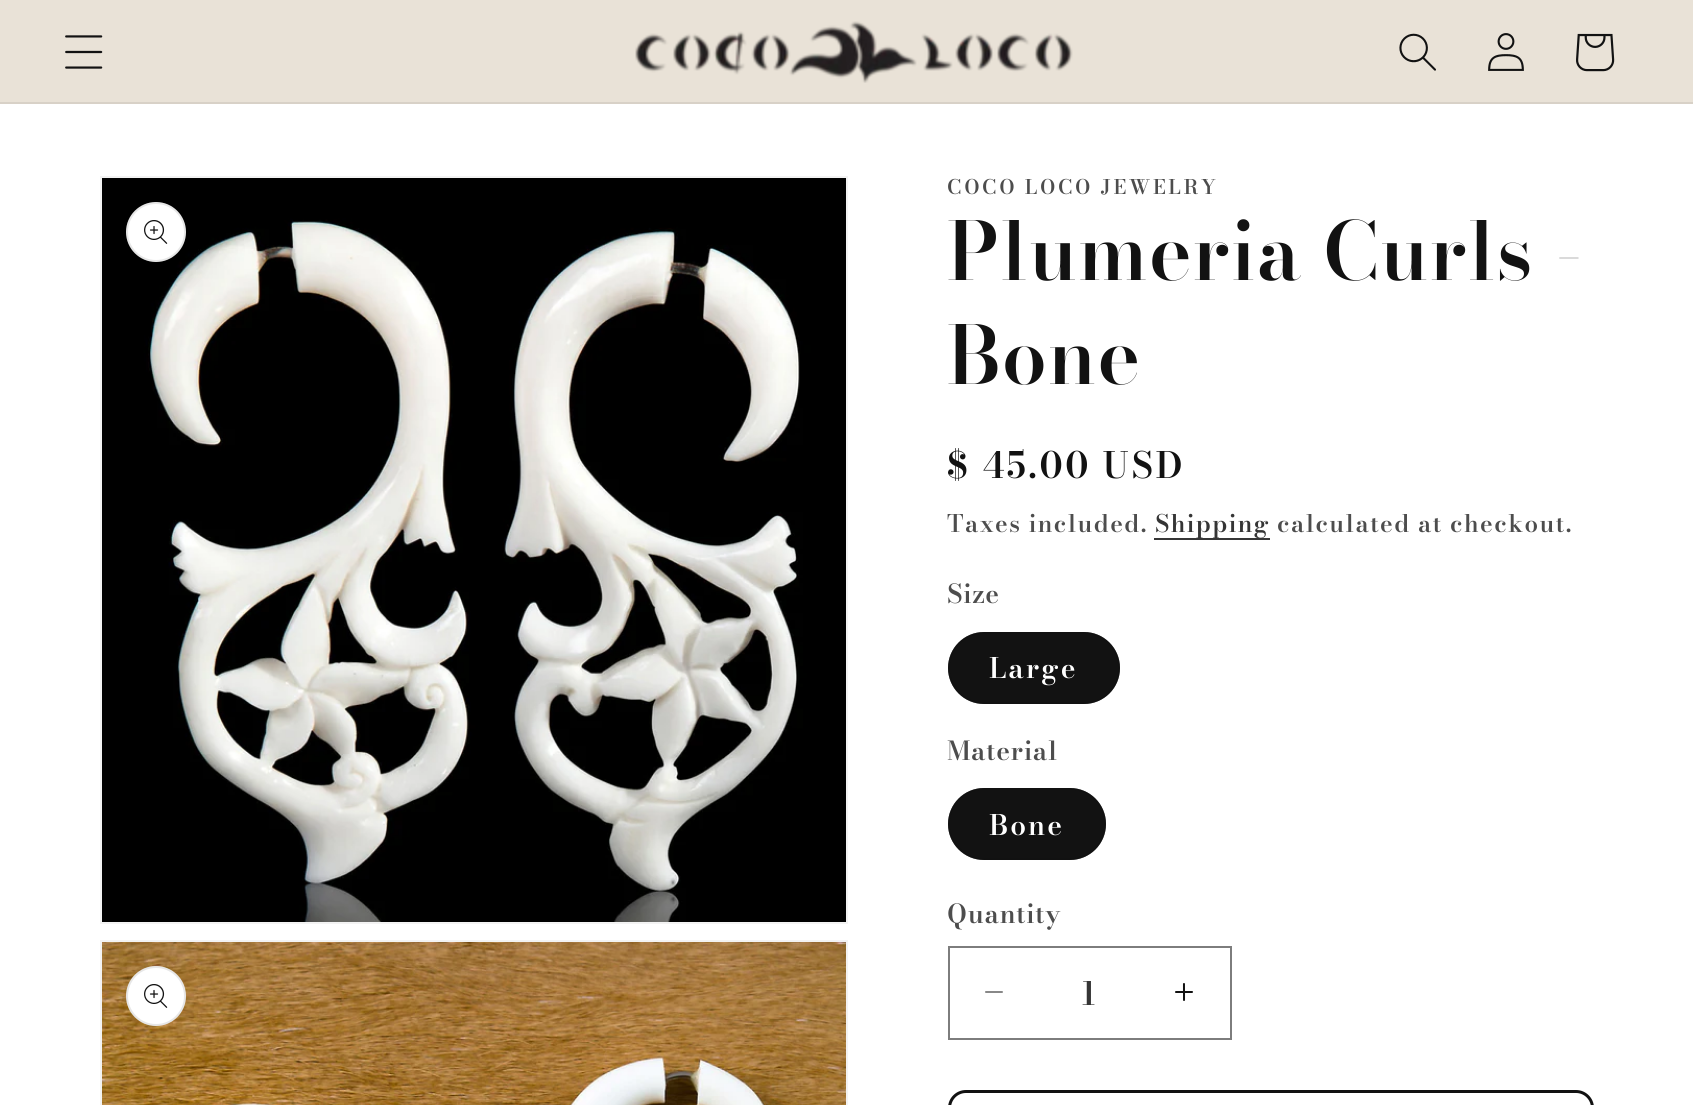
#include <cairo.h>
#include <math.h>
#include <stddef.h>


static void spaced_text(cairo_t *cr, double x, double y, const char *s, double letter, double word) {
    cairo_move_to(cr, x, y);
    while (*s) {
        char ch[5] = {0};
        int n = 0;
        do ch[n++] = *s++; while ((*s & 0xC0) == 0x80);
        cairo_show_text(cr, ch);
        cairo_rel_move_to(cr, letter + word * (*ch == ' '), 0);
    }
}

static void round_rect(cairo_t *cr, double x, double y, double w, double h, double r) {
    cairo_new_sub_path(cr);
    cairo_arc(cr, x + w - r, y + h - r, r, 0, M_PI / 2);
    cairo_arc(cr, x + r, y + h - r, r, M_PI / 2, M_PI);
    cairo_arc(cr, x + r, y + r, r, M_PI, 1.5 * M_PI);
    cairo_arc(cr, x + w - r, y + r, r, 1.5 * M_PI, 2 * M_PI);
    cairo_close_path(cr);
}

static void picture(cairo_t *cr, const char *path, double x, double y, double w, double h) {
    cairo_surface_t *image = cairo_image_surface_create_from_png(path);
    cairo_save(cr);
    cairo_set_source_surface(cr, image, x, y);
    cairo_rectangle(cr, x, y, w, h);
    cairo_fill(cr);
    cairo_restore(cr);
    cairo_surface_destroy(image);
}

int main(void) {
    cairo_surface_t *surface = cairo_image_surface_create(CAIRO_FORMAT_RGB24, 1693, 1105);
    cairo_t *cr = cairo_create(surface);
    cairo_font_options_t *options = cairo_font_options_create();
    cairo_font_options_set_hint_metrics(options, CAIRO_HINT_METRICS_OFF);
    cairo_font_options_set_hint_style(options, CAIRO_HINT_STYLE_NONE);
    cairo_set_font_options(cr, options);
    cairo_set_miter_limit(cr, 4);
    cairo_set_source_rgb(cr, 1, 1, 1);
    cairo_paint(cr);
    cairo_set_source_rgb(cr, 0.914, 0.886, 0.843);
    cairo_rectangle(cr, 0, 0, 1693, 102);
    cairo_fill(cr);
    cairo_set_source_rgb(cr, 0.847, 0.82, 0.78);
    cairo_rectangle(cr, 0, 102, 1693, 2);
    cairo_fill(cr);
    picture(cr, "img1.png", 65, 35, 38, 34);
    picture(cr, "img2.png", 635, 21, 438, 62);
    picture(cr, "img3.png", 1399, 33, 37, 38);
    picture(cr, "img4.png", 1488, 33, 36, 38);
    picture(cr, "img5.png", 1576, 33, 39, 39);
    cairo_rectangle(cr, 101, 177, 746, 746);
    cairo_set_source_rgb(cr, 0.953, 0.953, 0.953);
    cairo_stroke(cr);
    picture(cr, "img6.png", 102, 178, 744, 744);
    cairo_set_source_rgb(cr, 1, 1, 1);
    cairo_arc(cr, 156, 232, 30, 0, 2 * M_PI);
    cairo_fill(cr);
    cairo_arc(cr, 156, 232, 29, 0, 2 * M_PI);
    cairo_set_source_rgba(cr, 0.071, 0.071, 0.071, 0.1);
    cairo_stroke(cr);
    picture(cr, "img7.png", 144, 220, 24, 24);
    cairo_rectangle(cr, 101, 941, 746, 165);
    cairo_set_source_rgb(cr, 0.953, 0.953, 0.953);
    cairo_stroke(cr);
    picture(cr, "img8.png", 102, 942, 744, 163);
    cairo_set_source_rgb(cr, 1, 1, 1);
    cairo_arc(cr, 156, 996, 30, 0, 2 * M_PI);
    cairo_fill(cr);
    cairo_arc(cr, 156, 996, 29, 0, 2 * M_PI);
    cairo_set_source_rgba(cr, 0.071, 0.071, 0.071, 0.1);
    cairo_stroke(cr);
    picture(cr, "img7.png", 144, 984, 24, 24);
    cairo_select_font_face(cr, "Bodoni Moda SemiBold", CAIRO_FONT_SLANT_NORMAL, CAIRO_FONT_WEIGHT_NORMAL);
    cairo_set_font_size(cr, 20);
    cairo_set_source_rgb(cr, 0.302, 0.302, 0.302);
    spaced_text(cr, 947, 194, "COCO LOCO JEWELRY", 2.6, 0);
    cairo_select_font_face(cr, "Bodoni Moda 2 SemiBold", CAIRO_FONT_SLANT_NORMAL, CAIRO_FONT_WEIGHT_NORMAL);
    cairo_set_font_size(cr, 80);
    cairo_set_source_rgb(cr, 0.071, 0.071, 0.071);
    spaced_text(cr, 947, 280, "Plumeria Curls -", 1.25, 0);
    spaced_text(cr, 947, 384, "Bone", 1.25, 0);
    cairo_select_font_face(cr, "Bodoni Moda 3 SemiBold", CAIRO_FONT_SLANT_NORMAL, CAIRO_FONT_WEIGHT_NORMAL);
    cairo_set_font_size(cr, 36);
    spaced_text(cr, 947, 478, "$ 45.00 USD", 2.6, 0);
    cairo_set_font_size(cr, 24);
    cairo_set_source_rgb(cr, 0.302, 0.302, 0.302);
    spaced_text(cr, 947, 532, "Taxes included.", 1.4, 0);
    cairo_set_source_rgb(cr, 0.212, 0.212, 0.212);
    cairo_rectangle(cr, 1154, 538, 116, 2);
    cairo_fill(cr);
    cairo_set_source_rgb(cr, 0.208, 0.208, 0.208);
    spaced_text(cr, 1155, 532, "Shipping", 1.4, 0);
    cairo_set_source_rgb(cr, 0.302, 0.302, 0.302);
    spaced_text(cr, 1277, 532, "calculated at checkout.", 1.4, 0);
    cairo_set_font_size(cr, 26);
    spaced_text(cr, 947, 603, "Size", 0.75, 0);
    cairo_set_source_rgb(cr, 0.071, 0.071, 0.071);
    round_rect(cr, 948, 632, 172, 72, 36);
    cairo_fill(cr);
    round_rect(cr, 949, 633, 170, 70, 35);
    cairo_set_source_rgba(cr, 0.071, 0.071, 0.071, 0.55);
    cairo_stroke(cr);
    cairo_set_font_size(cr, 28);
    cairo_set_source_rgb(cr, 1, 1, 1);
    spaced_text(cr, 989, 678, "Large", 2, 0);
    cairo_set_font_size(cr, 26);
    cairo_set_source_rgb(cr, 0.302, 0.302, 0.302);
    spaced_text(cr, 947, 760, "Material", 0.75, 0);
    cairo_set_source_rgb(cr, 0.071, 0.071, 0.071);
    round_rect(cr, 948, 788, 158, 72, 36);
    cairo_fill(cr);
    round_rect(cr, 949, 789, 156, 70, 35);
    cairo_set_source_rgba(cr, 0.071, 0.071, 0.071, 0.55);
    cairo_stroke(cr);
    cairo_set_font_size(cr, 28);
    cairo_set_source_rgb(cr, 1, 1, 1);
    spaced_text(cr, 989, 835, "Bone", 2, 0);
    cairo_set_font_size(cr, 26);
    cairo_set_source_rgb(cr, 0.302, 0.302, 0.302);
    spaced_text(cr, 947, 923, "Quantity", 0.75, 0);
    picture(cr, "img9.png", 985, 991, 18, 2);
    picture(cr, "img10.png", 1175, 983, 18, 18);
    cairo_rectangle(cr, 949, 947, 282, 92);
    cairo_set_source_rgb(cr, 0.49, 0.49, 0.49);
    cairo_stroke(cr);
    cairo_set_font_size(cr, 32);
    cairo_set_source_rgb(cr, 0.208, 0.208, 0.208);
    cairo_move_to(cr, 1081, 1005);
    cairo_show_text(cr, "1");
    round_rect(cr, 949.5, 1091.5, 643, 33, 16.5);
    cairo_set_source_rgb(cr, 0.071, 0.071, 0.071);
    cairo_set_line_width(cr, 3);
    cairo_stroke(cr);
    cairo_surface_write_to_png(surface, "page.png");
    cairo_font_options_destroy(options);
    cairo_destroy(cr);
    cairo_surface_destroy(surface);
    return 0;
}
